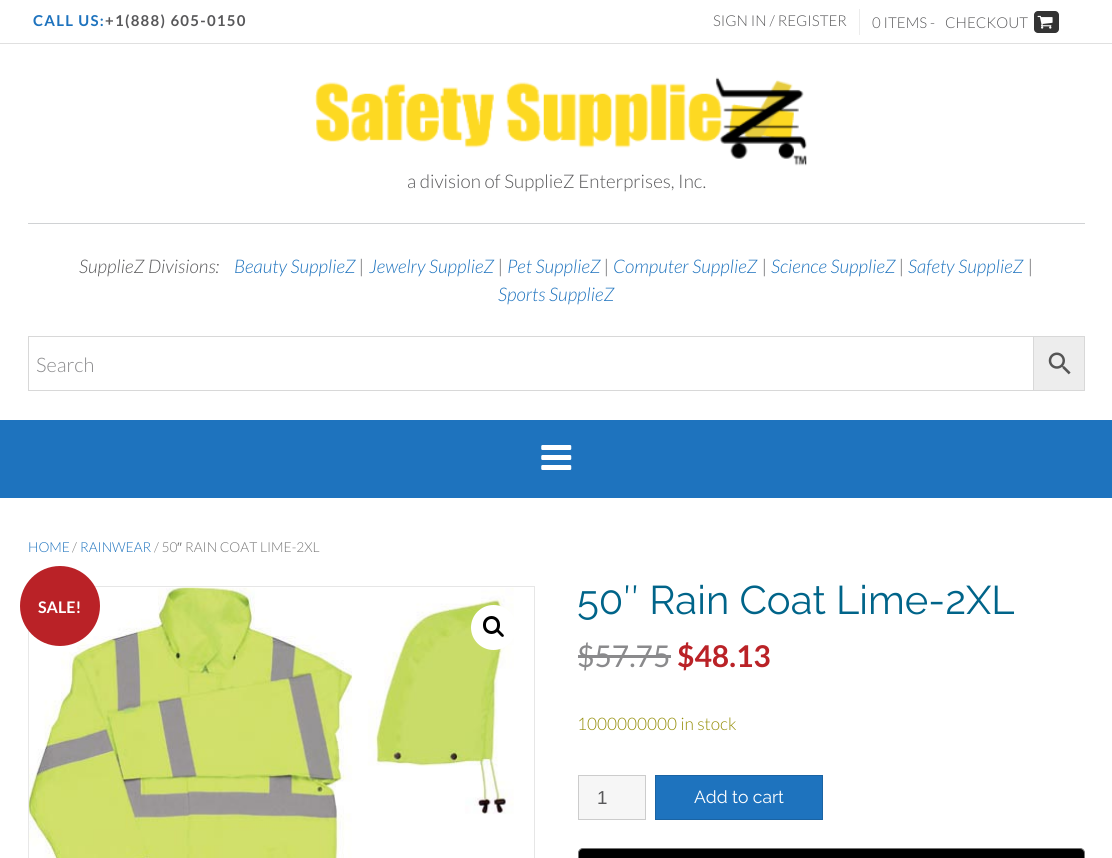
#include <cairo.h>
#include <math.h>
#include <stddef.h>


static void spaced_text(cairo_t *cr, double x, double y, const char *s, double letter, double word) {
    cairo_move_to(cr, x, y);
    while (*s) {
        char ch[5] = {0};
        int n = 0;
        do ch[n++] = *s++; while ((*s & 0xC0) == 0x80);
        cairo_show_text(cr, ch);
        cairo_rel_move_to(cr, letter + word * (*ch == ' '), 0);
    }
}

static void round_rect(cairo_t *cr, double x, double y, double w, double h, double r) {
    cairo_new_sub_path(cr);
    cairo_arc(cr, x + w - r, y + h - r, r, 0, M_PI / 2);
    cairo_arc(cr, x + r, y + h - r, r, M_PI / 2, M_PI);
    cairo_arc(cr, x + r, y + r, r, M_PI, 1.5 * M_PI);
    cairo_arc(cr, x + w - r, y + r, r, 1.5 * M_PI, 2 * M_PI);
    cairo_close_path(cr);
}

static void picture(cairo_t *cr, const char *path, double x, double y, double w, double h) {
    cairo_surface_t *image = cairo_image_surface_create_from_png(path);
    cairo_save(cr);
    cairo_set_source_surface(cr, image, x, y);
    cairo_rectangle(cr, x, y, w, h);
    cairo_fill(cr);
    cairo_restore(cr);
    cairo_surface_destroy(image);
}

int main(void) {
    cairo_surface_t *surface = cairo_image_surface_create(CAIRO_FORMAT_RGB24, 1112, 858);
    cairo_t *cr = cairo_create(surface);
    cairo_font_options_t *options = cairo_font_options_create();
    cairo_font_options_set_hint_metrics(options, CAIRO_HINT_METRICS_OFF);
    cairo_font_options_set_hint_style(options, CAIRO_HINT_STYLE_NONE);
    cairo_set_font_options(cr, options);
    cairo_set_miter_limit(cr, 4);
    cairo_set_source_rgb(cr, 1, 1, 1);
    cairo_paint(cr);
    cairo_set_source_rgb(cr, 0.878, 0.878, 0.878);
    cairo_rectangle(cr, 0, 43, 1112, 1);
    cairo_fill(cr);
    cairo_select_font_face(cr, "Lato", CAIRO_FONT_SLANT_NORMAL, CAIRO_FONT_WEIGHT_BOLD);
    cairo_set_font_size(cr, 15);
    cairo_set_source_rgb(cr, 0.118, 0.451, 0.745);
    spaced_text(cr, 33, 26, "CALL US:", 1.25, 0);
    cairo_set_source_rgb(cr, 0.345, 0.345, 0.353);
    spaced_text(cr, 105, 26, "+1(888) 605-0150", 1.25, 0);
    cairo_set_source_rgb(cr, 0.922, 0.922, 0.922);
    cairo_rectangle(cr, 859, 9, 1, 26);
    cairo_fill(cr);
    cairo_select_font_face(cr, "Lato Light", CAIRO_FONT_SLANT_NORMAL, CAIRO_FONT_WEIGHT_NORMAL);
    cairo_set_source_rgb(cr, 0.345, 0.345, 0.353);
    cairo_move_to(cr, 713, 26);
    cairo_show_text(cr, "SIGN IN / REGISTER");
    cairo_move_to(cr, 872, 28);
    cairo_show_text(cr, "0 ITEMS -");
    cairo_move_to(cr, 945, 28);
    cairo_show_text(cr, "CHECKOUT");
    cairo_set_source_rgb(cr, 0.2, 0.2, 0.2);
    round_rect(cr, 1034, 11, 25, 22, 4);
    cairo_fill(cr);
    picture(cr, "img1.png", 1037, 15, 16, 14);
    picture(cr, "img2.png", 315, 77, 492, 89);
    cairo_set_font_size(cr, 18.75);
    cairo_set_source_rgb(cr, 0.345, 0.345, 0.353);
    cairo_move_to(cr, 407, 188);
    cairo_show_text(cr, "a division of SupplieZ Enterprises, Inc.");
    cairo_set_source_rgb(cr, 0.816, 0.824, 0.831);
    cairo_rectangle(cr, 28, 223, 1057, 1);
    cairo_fill(cr);
    cairo_select_font_face(cr, "Lato Light", CAIRO_FONT_SLANT_ITALIC, CAIRO_FONT_WEIGHT_NORMAL);
    cairo_set_source_rgb(cr, 0.345, 0.345, 0.353);
    cairo_move_to(cr, 79, 273);
    cairo_show_text(cr, "SupplieZ Divisions:");
    cairo_set_source_rgb(cr, 0.118, 0.451, 0.745);
    cairo_move_to(cr, 234, 273);
    cairo_show_text(cr, "Beauty SupplieZ");
    cairo_set_source_rgb(cr, 0.345, 0.345, 0.353);
    cairo_move_to(cr, 359, 273);
    cairo_show_text(cr, "|");
    cairo_set_source_rgb(cr, 0.118, 0.451, 0.745);
    cairo_move_to(cr, 369, 273);
    cairo_show_text(cr, "Jewelry SupplieZ");
    cairo_set_source_rgb(cr, 0.345, 0.345, 0.353);
    cairo_move_to(cr, 498, 273);
    cairo_show_text(cr, "|");
    cairo_set_source_rgb(cr, 0.118, 0.451, 0.745);
    cairo_move_to(cr, 507, 273);
    cairo_show_text(cr, "Pet SupplieZ");
    cairo_set_source_rgb(cr, 0.345, 0.345, 0.353);
    cairo_move_to(cr, 604, 273);
    cairo_show_text(cr, "|");
    cairo_set_source_rgb(cr, 0.118, 0.451, 0.745);
    cairo_move_to(cr, 613, 273);
    cairo_show_text(cr, "Computer SupplieZ");
    cairo_set_source_rgb(cr, 0.345, 0.345, 0.353);
    cairo_move_to(cr, 762, 273);
    cairo_show_text(cr, "|");
    cairo_set_source_rgb(cr, 0.118, 0.451, 0.745);
    cairo_move_to(cr, 771, 273);
    cairo_show_text(cr, "Science SupplieZ");
    cairo_set_source_rgb(cr, 0.345, 0.345, 0.353);
    cairo_move_to(cr, 899, 273);
    cairo_show_text(cr, "|");
    cairo_set_source_rgb(cr, 0.118, 0.451, 0.745);
    cairo_move_to(cr, 908, 273);
    cairo_show_text(cr, "Safety SupplieZ");
    cairo_set_source_rgb(cr, 0.345, 0.345, 0.353);
    cairo_move_to(cr, 1028, 273);
    cairo_show_text(cr, "|");
    cairo_set_source_rgb(cr, 0.118, 0.451, 0.745);
    cairo_move_to(cr, 498, 301);
    cairo_show_text(cr, "Sports SupplieZ");
    cairo_set_source_rgb(cr, 0.929, 0.929, 0.929);
    cairo_rectangle(cr, 1033.5, 336.5, 51, 54);
    cairo_fill_preserve(cr);
    cairo_set_source_rgb(cr, 0.847, 0.847, 0.847);
    cairo_set_line_width(cr, 1);
    cairo_stroke(cr);
    cairo_rectangle(cr, 28.5, 336.5, 1005, 54);
    cairo_stroke(cr);
    cairo_select_font_face(cr, "Lato Light", CAIRO_FONT_SLANT_NORMAL, CAIRO_FONT_WEIGHT_NORMAL);
    cairo_set_font_size(cr, 20);
    cairo_set_source_rgb(cr, 0.541, 0.541, 0.549);
    cairo_move_to(cr, 36, 372);
    cairo_show_text(cr, "Search");
    picture(cr, "img3.png", 1048, 352, 23, 23);
    cairo_set_source_rgb(cr, 0.118, 0.451, 0.745);
    cairo_rectangle(cr, 0, 420, 1112, 78);
    cairo_fill(cr);
    picture(cr, "img4.png", 541, 445, 31, 25);
    cairo_set_font_size(cr, 13.75);
    cairo_move_to(cr, 28, 552);
    cairo_show_text(cr, "HOME");
    cairo_set_source_rgb(cr, 0.467, 0.467, 0.467);
    cairo_move_to(cr, 72, 552);
    cairo_show_text(cr, "/");
    cairo_set_source_rgb(cr, 0.118, 0.451, 0.745);
    cairo_move_to(cr, 80, 552);
    cairo_show_text(cr, "RAINWEAR");
    cairo_set_source_rgb(cr, 0.467, 0.467, 0.467);
    cairo_move_to(cr, 154, 552);
    cairo_show_text(cr, "/ 50");
    cairo_select_font_face(cr, "Liberation Sans", CAIRO_FONT_SLANT_NORMAL, CAIRO_FONT_WEIGHT_NORMAL);
    cairo_move_to(cr, 177, 552);
    cairo_show_text(cr, "″");
    cairo_select_font_face(cr, "Lato Light", CAIRO_FONT_SLANT_NORMAL, CAIRO_FONT_WEIGHT_NORMAL);
    cairo_move_to(cr, 185, 552);
    cairo_show_text(cr, "RAIN COAT LIME-2XL");
    cairo_rectangle(cr, 28.5, 586.5, 506, 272);
    cairo_set_source_rgb(cr, 0.902, 0.902, 0.902);
    cairo_stroke(cr);
    picture(cr, "img5.png", 28, 587, 486, 271);
    cairo_set_source_rgb(cr, 1, 1, 1);
    cairo_arc(cr, 493.5, 627.5, 22.5, 0, 2 * M_PI);
    cairo_fill(cr);
    round_rect(cr, 484.5, 617.5, 14, 15, 7);
    cairo_set_source_rgb(cr, 0, 0, 0);
    cairo_set_line_width(cr, 3);
    cairo_stroke(cr);
    cairo_new_path(cr);
    cairo_move_to(cr, 496.5, 629.5);
    cairo_curve_to(cr, 498, 628, 500, 631.5, 501, 632);
    cairo_curve_to(cr, 501.5, 633, 505, 635, 503.5, 636.5);
    cairo_curve_to(cr, 502, 638, 500, 635, 499, 634);
    cairo_curve_to(cr, 498.5, 633, 495, 631, 496.5, 629.5);
    cairo_close_path(cr);
    cairo_fill(cr);
    cairo_select_font_face(cr, "Raleway", CAIRO_FONT_SLANT_NORMAL, CAIRO_FONT_WEIGHT_NORMAL);
    cairo_set_font_size(cr, 40);
    cairo_set_source_rgb(cr, 0, 0.392, 0.537);
    cairo_move_to(cr, 577, 614);
    cairo_show_text(cr, "50″ Rain Coat Lime-2XL");
    cairo_select_font_face(cr, "Lato", CAIRO_FONT_SLANT_NORMAL, CAIRO_FONT_WEIGHT_NORMAL);
    cairo_set_font_size(cr, 30);
    cairo_set_source_rgb(cr, 0.541, 0.541, 0.549);
    cairo_move_to(cr, 577, 667);
    cairo_show_text(cr, "$57.75");
    cairo_rectangle(cr, 578, 655, 93, 3);
    cairo_fill(cr);
    cairo_select_font_face(cr, "Lato", CAIRO_FONT_SLANT_NORMAL, CAIRO_FONT_WEIGHT_BOLD);
    cairo_set_source_rgb(cr, 0.729, 0.133, 0.153);
    cairo_move_to(cr, 677, 667);
    cairo_show_text(cr, "$48.13");
    cairo_select_font_face(cr, "Lato Light", CAIRO_FONT_SLANT_NORMAL, CAIRO_FONT_WEIGHT_NORMAL);
    cairo_set_font_size(cr, 17.25);
    cairo_set_source_rgb(cr, 0.584, 0.557, 0.035);
    cairo_move_to(cr, 577, 730);
    cairo_show_text(cr, "1000000000 in stock");
    cairo_set_source_rgb(cr, 0.961, 0.961, 0.961);
    cairo_rectangle(cr, 578.5, 775.5, 67, 44);
    cairo_fill_preserve(cr);
    cairo_set_source_rgb(cr, 0.8, 0.8, 0.8);
    cairo_set_line_width(cr, 1);
    cairo_stroke(cr);
    cairo_select_font_face(cr, "Liberation Sans", CAIRO_FONT_SLANT_NORMAL, CAIRO_FONT_WEIGHT_NORMAL);
    cairo_set_font_size(cr, 18.75);
    cairo_set_source_rgb(cr, 0.345, 0.345, 0.353);
    cairo_move_to(cr, 597, 804);
    cairo_show_text(cr, "1");
    cairo_set_source_rgb(cr, 0.118, 0.451, 0.745);
    cairo_rectangle(cr, 655.5, 775.5, 167, 44);
    cairo_fill_preserve(cr);
    cairo_set_source_rgb(cr, 0.102, 0.388, 0.639);
    cairo_stroke(cr);
    cairo_select_font_face(cr, "Raleway", CAIRO_FONT_SLANT_NORMAL, CAIRO_FONT_WEIGHT_NORMAL);
    cairo_set_font_size(cr, 17.5);
    cairo_set_source_rgb(cr, 1, 1, 1);
    cairo_move_to(cr, 694, 803);
    cairo_show_text(cr, "Add to cart");
    cairo_set_source_rgb(cr, 0, 0, 0);
    round_rect(cr, 578.5, 848.5, 506, 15, 4.5);
    cairo_fill_preserve(cr);
    cairo_set_source_rgb(cr, 0.459, 0.459, 0.459);
    cairo_stroke(cr);
    cairo_set_source_rgb(cr, 0.729, 0.133, 0.153);
    cairo_arc(cr, 60, 606, 40, 0, 2 * M_PI);
    cairo_fill(cr);
    cairo_select_font_face(cr, "Lato", CAIRO_FONT_SLANT_NORMAL, CAIRO_FONT_WEIGHT_BOLD);
    cairo_set_font_size(cr, 16);
    cairo_set_source_rgb(cr, 1, 1, 1);
    cairo_move_to(cr, 38, 613);
    cairo_show_text(cr, "SALE!");
    cairo_surface_write_to_png(surface, "page.png");
    cairo_font_options_destroy(options);
    cairo_destroy(cr);
    cairo_surface_destroy(surface);
    return 0;
}
